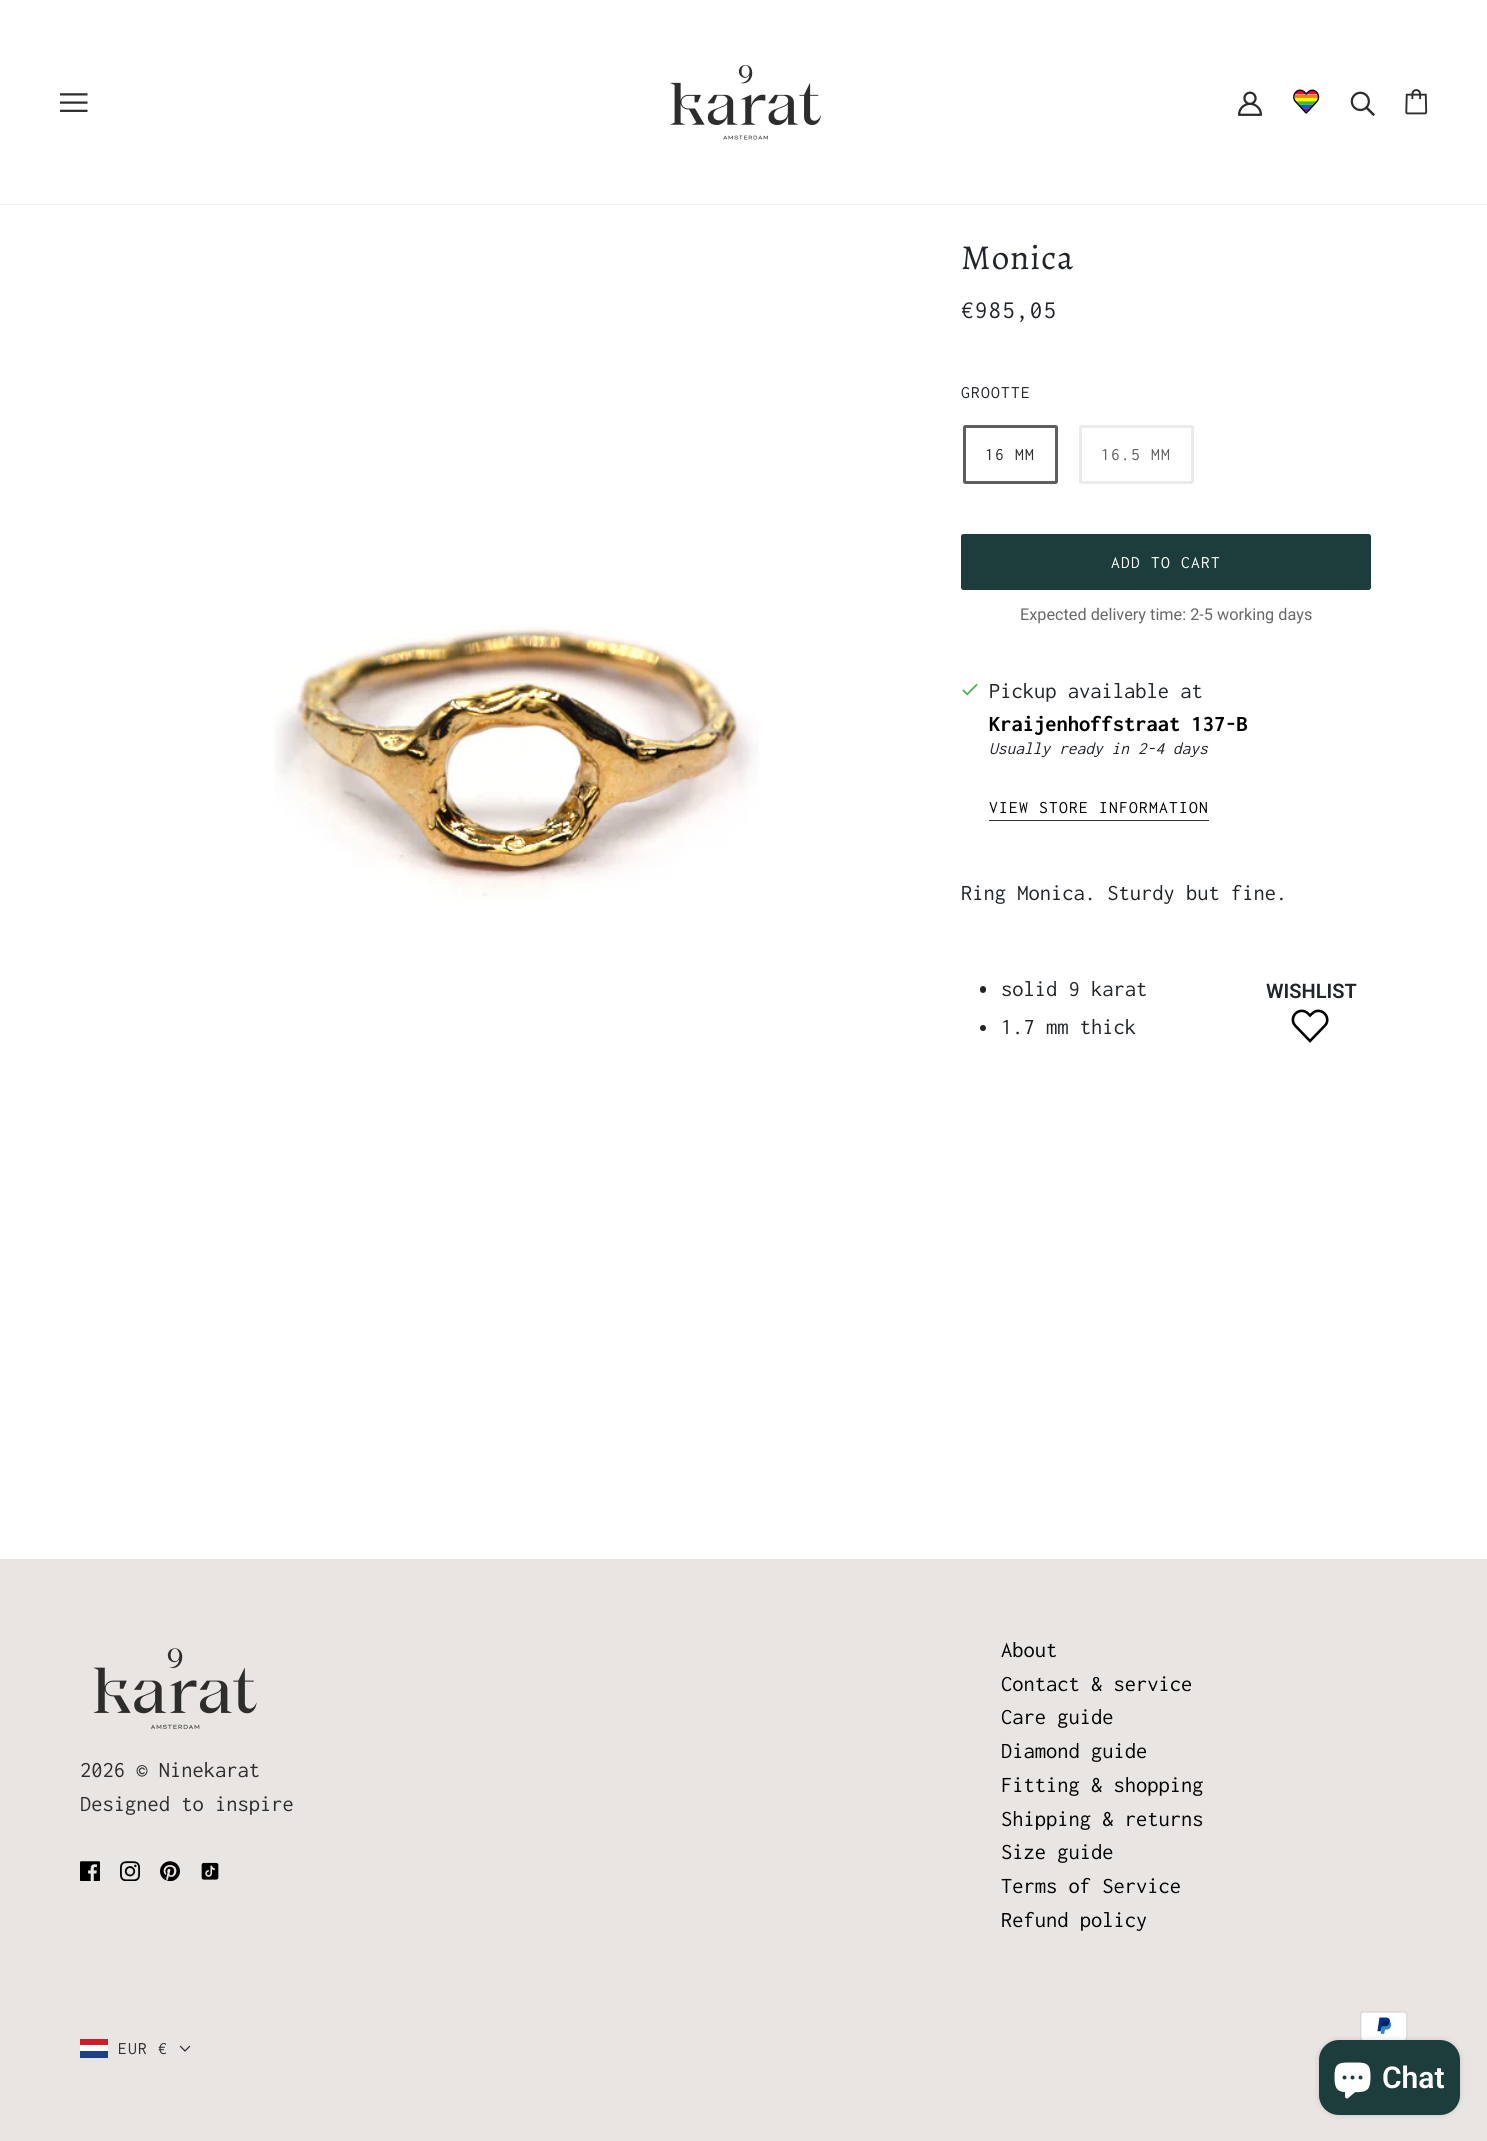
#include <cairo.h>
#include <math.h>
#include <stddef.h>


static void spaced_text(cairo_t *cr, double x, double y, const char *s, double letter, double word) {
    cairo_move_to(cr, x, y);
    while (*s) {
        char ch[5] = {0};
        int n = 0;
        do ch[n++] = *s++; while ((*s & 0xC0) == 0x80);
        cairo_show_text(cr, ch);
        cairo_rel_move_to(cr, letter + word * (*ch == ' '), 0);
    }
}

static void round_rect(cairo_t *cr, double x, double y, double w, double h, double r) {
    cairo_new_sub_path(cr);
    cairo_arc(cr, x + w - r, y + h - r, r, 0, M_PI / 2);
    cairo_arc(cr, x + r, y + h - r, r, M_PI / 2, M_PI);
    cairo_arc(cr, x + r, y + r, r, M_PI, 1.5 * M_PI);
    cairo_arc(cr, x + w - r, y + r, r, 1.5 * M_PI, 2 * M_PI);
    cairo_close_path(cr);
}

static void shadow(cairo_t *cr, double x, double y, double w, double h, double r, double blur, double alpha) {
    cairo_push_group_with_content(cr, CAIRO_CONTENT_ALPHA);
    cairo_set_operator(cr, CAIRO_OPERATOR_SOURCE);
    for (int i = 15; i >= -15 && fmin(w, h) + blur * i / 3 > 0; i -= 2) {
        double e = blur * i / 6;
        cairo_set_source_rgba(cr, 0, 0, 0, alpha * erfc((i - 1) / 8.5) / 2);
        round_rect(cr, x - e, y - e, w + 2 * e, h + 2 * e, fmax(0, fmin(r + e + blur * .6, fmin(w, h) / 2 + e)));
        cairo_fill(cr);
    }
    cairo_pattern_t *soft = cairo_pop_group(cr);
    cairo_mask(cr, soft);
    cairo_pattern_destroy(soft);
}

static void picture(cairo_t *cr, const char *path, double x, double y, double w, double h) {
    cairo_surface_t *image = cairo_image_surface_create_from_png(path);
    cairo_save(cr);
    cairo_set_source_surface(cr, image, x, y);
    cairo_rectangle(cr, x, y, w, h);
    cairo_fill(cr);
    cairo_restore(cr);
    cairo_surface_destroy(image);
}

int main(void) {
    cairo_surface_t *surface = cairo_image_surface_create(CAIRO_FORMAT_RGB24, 1487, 2141);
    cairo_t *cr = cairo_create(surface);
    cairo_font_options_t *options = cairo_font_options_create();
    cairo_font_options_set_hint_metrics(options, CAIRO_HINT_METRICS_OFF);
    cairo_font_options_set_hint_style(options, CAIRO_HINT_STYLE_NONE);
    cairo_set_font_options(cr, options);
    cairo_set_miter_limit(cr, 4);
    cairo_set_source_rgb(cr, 1, 1, 1);
    cairo_paint(cr);
    cairo_set_source_rgb(cr, 0.941, 0.941, 0.941);
    cairo_rectangle(cr, 0, 204, 1487, 1);
    cairo_fill(cr);
    picture(cr, "img1.png", 60, 93, 28, 19);
    picture(cr, "img2.png", 670, 65, 151, 75);
    picture(cr, "img3.png", 1238, 91, 25, 25);
    picture(cr, "img4.png", 1293, 89, 27, 25);
    picture(cr, "img5.png", 1350, 91, 25, 25);
    picture(cr, "img6.png", 1405, 89, 23, 26);
    picture(cr, "img7.png", 274, 625, 485, 276);
    cairo_select_font_face(cr, "Alegreya", CAIRO_FONT_SLANT_NORMAL, CAIRO_FONT_WEIGHT_NORMAL);
    cairo_set_font_size(cr, 35);
    cairo_set_source_rgb(cr, 0.129, 0.145, 0.161);
    spaced_text(cr, 961, 269, "Monica", 1, 0);
    cairo_select_font_face(cr, "Inconsolata", CAIRO_FONT_SLANT_NORMAL, CAIRO_FONT_WEIGHT_NORMAL);
    cairo_set_font_size(cr, 25);
    spaced_text(cr, 961, 318, "€985,05", 1.25, 0);
    cairo_set_font_size(cr, 17.5);
    spaced_text(cr, 961, 398, "GROOTTE", 1.25, 0);
    round_rect(cr, 964.5, 426.5, 92, 56, 1);
    cairo_set_source_rgb(cr, 0.373, 0.365, 0.373);
    cairo_set_line_width(cr, 3);
    cairo_stroke(cr);
    cairo_set_source_rgb(cr, 0.18, 0.176, 0.18);
    spaced_text(cr, 985, 460, "16 MM", 1.25, 0);
    round_rect(cr, 1080.5, 426.5, 112, 56, 1);
    cairo_set_source_rgb(cr, 0.918, 0.918, 0.918);
    cairo_stroke(cr);
    cairo_set_source_rgb(cr, 0.373, 0.365, 0.373);
    spaced_text(cr, 1101, 460, "16.5 MM", 1.25, 0);
    cairo_set_source_rgb(cr, 0.11, 0.239, 0.235);
    round_rect(cr, 961, 534, 410, 56, 2.5);
    cairo_fill(cr);
    cairo_set_source_rgb(cr, 1, 1, 1);
    spaced_text(cr, 1111, 568, "ADD TO CART", 1.25, 0);
    cairo_select_font_face(cr, "Roboto", CAIRO_FONT_SLANT_NORMAL, CAIRO_FONT_WEIGHT_NORMAL);
    cairo_set_font_size(cr, 16.25);
    cairo_set_source_rgb(cr, 0.408, 0.408, 0.408);
    cairo_move_to(cr, 1020, 620);
    cairo_show_text(cr, "Expected delivery time: 2-5 working days");
    picture(cr, "img8.png", 962, 683, 16, 13);
    cairo_select_font_face(cr, "Inconsolata", CAIRO_FONT_SLANT_NORMAL, CAIRO_FONT_WEIGHT_NORMAL);
    cairo_set_font_size(cr, 22.5);
    cairo_set_source_rgb(cr, 0.129, 0.145, 0.161);
    cairo_move_to(cr, 989, 698);
    cairo_show_text(cr, "Pickup available at");
    cairo_select_font_face(cr, "Inconsolata", CAIRO_FONT_SLANT_NORMAL, CAIRO_FONT_WEIGHT_BOLD);
    cairo_set_source_rgb(cr, 0, 0, 0);
    cairo_move_to(cr, 989, 731);
    cairo_show_text(cr, "Kraijenhoffstraat 137-B");
    cairo_select_font_face(cr, "Inconsolata", CAIRO_FONT_SLANT_ITALIC, CAIRO_FONT_WEIGHT_NORMAL);
    cairo_set_font_size(cr, 17.5);
    cairo_set_source_rgb(cr, 0.129, 0.145, 0.161);
    cairo_move_to(cr, 989, 754);
    cairo_show_text(cr, "Usually ready in 2-4 days");
    cairo_select_font_face(cr, "Inconsolata", CAIRO_FONT_SLANT_NORMAL, CAIRO_FONT_WEIGHT_NORMAL);
    cairo_set_source_rgb(cr, 0, 0, 0);
    spaced_text(cr, 989, 813, "VIEW STORE INFORMATION", 1.25, 0);
    cairo_set_source_rgb(cr, 0.18, 0.176, 0.18);
    cairo_rectangle(cr, 989, 820, 220, 1);
    cairo_fill(cr);
    cairo_set_font_size(cr, 22.5);
    cairo_set_source_rgb(cr, 0.129, 0.145, 0.161);
    cairo_move_to(cr, 961, 900);
    cairo_show_text(cr, "Ring Monica. Sturdy but fine.");
    round_rect(cr, 980, 986, 6, 7, 3);
    cairo_fill(cr);
    cairo_move_to(cr, 1001, 996);
    cairo_show_text(cr, "solid 9 karat");
    cairo_new_path(cr);
    cairo_arc(cr, 983, 1028, 3, 0, 2 * M_PI);
    cairo_fill(cr);
    cairo_move_to(cr, 1001, 1034);
    cairo_show_text(cr, "1.7 mm thick");
    cairo_select_font_face(cr, "Roboto SemiBold", CAIRO_FONT_SLANT_NORMAL, CAIRO_FONT_WEIGHT_NORMAL);
    cairo_set_font_size(cr, 20);
    cairo_move_to(cr, 1266, 998);
    cairo_show_text(cr, "WISHLIST");
    cairo_new_path(cr);
    cairo_move_to(cr, 1324.5, 1026);
    cairo_line_to(cr, 1310, 1041);
    cairo_line_to(cr, 1295.5, 1026);
    cairo_curve_to(cr, 1292, 1022.5, 1292, 1017, 1295.5, 1013.5);
    cairo_curve_to(cr, 1299, 1010, 1304.5, 1010, 1308, 1013.5);
    cairo_line_to(cr, 1310, 1015.5);
    cairo_curve_to(cr, 1311.5, 1014, 1313, 1012.5, 1315, 1011.5);
    cairo_curve_to(cr, 1324, 1008, 1331.5, 1019.5, 1324.5, 1026);
    cairo_close_path(cr);
    cairo_set_source_rgb(cr, 0, 0, 0);
    cairo_set_line_width(cr, 2.6);
    cairo_stroke(cr);
    cairo_set_source_rgb(cr, 0.914, 0.898, 0.886);
    cairo_rectangle(cr, 0, 1559, 1487, 582);
    cairo_fill(cr);
    picture(cr, "img9.png", 93, 1648, 164, 81);
    cairo_select_font_face(cr, "Inconsolata", CAIRO_FONT_SLANT_NORMAL, CAIRO_FONT_WEIGHT_NORMAL);
    cairo_set_font_size(cr, 22.5);
    cairo_set_source_rgb(cr, 0.18, 0.176, 0.18);
    cairo_move_to(cr, 80, 1777);
    cairo_show_text(cr, "2026 © Ninekarat");
    cairo_move_to(cr, 80, 1811);
    cairo_show_text(cr, "Designed to inspire");
    picture(cr, "img10.png", 80, 1861, 20, 20);
    picture(cr, "img11.png", 120, 1861, 20, 20);
    picture(cr, "img12.png", 160, 1861, 20, 20);
    picture(cr, "img13.png", 201, 1862, 18, 18);
    cairo_set_source_rgb(cr, 0, 0, 0);
    cairo_move_to(cr, 1001, 1657);
    cairo_show_text(cr, "About");
    cairo_move_to(cr, 1001, 1691);
    cairo_show_text(cr, "Contact & service");
    cairo_move_to(cr, 1001, 1724);
    cairo_show_text(cr, "Care guide");
    cairo_move_to(cr, 1001, 1758);
    cairo_show_text(cr, "Diamond guide");
    cairo_move_to(cr, 1001, 1792);
    cairo_show_text(cr, "Fitting & shopping");
    cairo_move_to(cr, 1001, 1826);
    cairo_show_text(cr, "Shipping & returns");
    cairo_move_to(cr, 1001, 1859);
    cairo_show_text(cr, "Size guide");
    cairo_move_to(cr, 1001, 1893);
    cairo_show_text(cr, "Terms of Service");
    cairo_move_to(cr, 1001, 1927);
    cairo_show_text(cr, "Refund policy");
    picture(cr, "img14.png", 1360, 2011, 48, 29);
    cairo_set_source_rgb(cr, 1, 1, 1);
    cairo_rectangle(cr, 80, 2045, 28, 6);
    cairo_fill(cr);
    cairo_set_source_rgb(cr, 0.804, 0.122, 0.165);
    cairo_rectangle(cr, 80, 2039, 28, 6);
    cairo_fill(cr);
    cairo_set_source_rgb(cr, 0.114, 0.255, 0.522);
    cairo_rectangle(cr, 80, 2051, 28, 7);
    cairo_fill(cr);
    cairo_set_font_size(cr, 17.5);
    cairo_set_source_rgb(cr, 0.18, 0.176, 0.18);
    spaced_text(cr, 118, 2054, "EUR €", 1.25, 0);
    picture(cr, "img15.png", 179, 2045, 12, 7);
    cairo_set_source_rgb(cr, 0, 0, 0);
    shadow(cr, 1319, 2040, 141, 75, 20, 3, 0.15);
    cairo_set_source_rgb(cr, 0.11, 0.239, 0.235);
    round_rect(cr, 1319, 2040, 141, 75, 20);
    cairo_fill(cr);
    picture(cr, "img16.png", 1334, 2062, 37, 37);
    cairo_select_font_face(cr, "Roboto SemiBold", CAIRO_FONT_SLANT_NORMAL, CAIRO_FONT_WEIGHT_NORMAL);
    cairo_set_font_size(cr, 30);
    cairo_set_source_rgb(cr, 1, 1, 1);
    cairo_move_to(cr, 1382, 2088);
    cairo_show_text(cr, "Chat");
    cairo_surface_write_to_png(surface, "page.png");
    cairo_font_options_destroy(options);
    cairo_destroy(cr);
    cairo_surface_destroy(surface);
    return 0;
}
